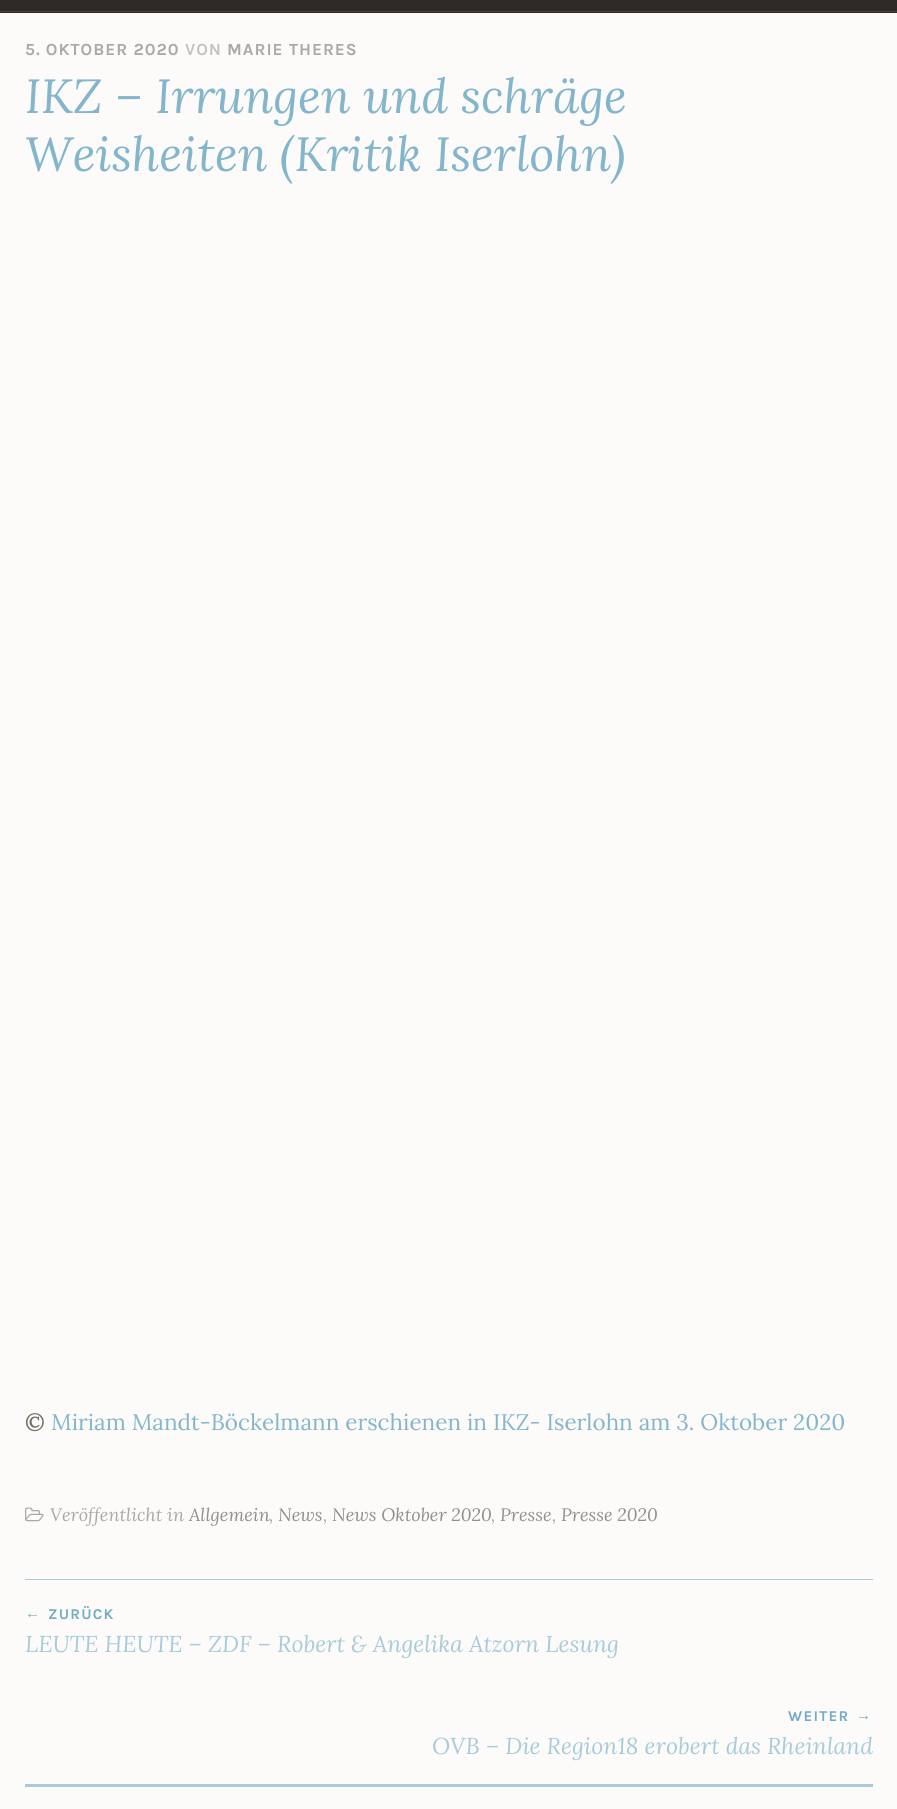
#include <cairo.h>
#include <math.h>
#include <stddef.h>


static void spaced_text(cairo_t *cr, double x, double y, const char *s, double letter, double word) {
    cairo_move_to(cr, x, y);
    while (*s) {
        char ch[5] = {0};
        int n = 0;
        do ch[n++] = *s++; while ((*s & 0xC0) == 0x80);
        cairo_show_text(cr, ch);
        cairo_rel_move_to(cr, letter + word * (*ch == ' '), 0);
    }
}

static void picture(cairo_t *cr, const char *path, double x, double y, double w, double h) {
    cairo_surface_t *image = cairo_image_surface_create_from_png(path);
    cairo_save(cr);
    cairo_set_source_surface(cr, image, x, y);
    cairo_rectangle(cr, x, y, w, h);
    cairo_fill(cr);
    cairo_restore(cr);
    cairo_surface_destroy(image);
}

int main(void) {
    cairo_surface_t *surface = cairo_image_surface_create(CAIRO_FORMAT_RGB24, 897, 1809);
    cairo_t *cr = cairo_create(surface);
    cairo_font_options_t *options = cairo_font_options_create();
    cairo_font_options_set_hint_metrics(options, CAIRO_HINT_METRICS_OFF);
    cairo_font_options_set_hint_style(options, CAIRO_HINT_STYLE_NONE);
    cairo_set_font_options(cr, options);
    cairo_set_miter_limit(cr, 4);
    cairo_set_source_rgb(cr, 0.988, 0.984, 0.98);
    cairo_paint(cr);
    cairo_set_source_rgb(cr, 0.176, 0.165, 0.149);
    cairo_rectangle(cr, 0, 0, 897, 13);
    cairo_fill(cr);
    cairo_set_source_rgb(cr, 0.286, 0.267, 0.239);
    cairo_rectangle(cr, 0, 11, 897, 1);
    cairo_fill(cr);
    cairo_select_font_face(cr, "Karla", CAIRO_FONT_SLANT_NORMAL, CAIRO_FONT_WEIGHT_BOLD);
    cairo_set_font_size(cr, 17);
    cairo_set_source_rgb(cr, 0.663, 0.663, 0.663);
    spaced_text(cr, 25, 55, "5. OKTOBER 2020", 1, 0);
    cairo_set_source_rgb(cr, 0.765, 0.765, 0.765);
    spaced_text(cr, 185, 55, "VON", 1, 0);
    cairo_set_source_rgb(cr, 0.663, 0.663, 0.663);
    spaced_text(cr, 227, 55, "MARIE THERES", 1, 0);
    cairo_select_font_face(cr, "Lora", CAIRO_FONT_SLANT_ITALIC, CAIRO_FONT_WEIGHT_NORMAL);
    cairo_set_font_size(cr, 48);
    cairo_set_source_rgb(cr, 0.514, 0.714, 0.8);
    cairo_move_to(cr, 25, 113);
    cairo_show_text(cr, "IKZ – Irrungen und schräge");
    cairo_move_to(cr, 25, 171);
    cairo_show_text(cr, "Weisheiten (Kritik Iserlohn)");
    cairo_select_font_face(cr, "Lora", CAIRO_FONT_SLANT_NORMAL, CAIRO_FONT_WEIGHT_NORMAL);
    cairo_set_font_size(cr, 22.5);
    cairo_set_source_rgb(cr, 0.447, 0.42, 0.376);
    cairo_move_to(cr, 25, 1430);
    cairo_show_text(cr, "©");
    cairo_set_source_rgb(cr, 0.514, 0.714, 0.8);
    cairo_move_to(cr, 51, 1430);
    cairo_show_text(cr, "Miriam Mandt-Böckelmann erschienen in IKZ- Iserlohn am 3. Oktober 2020");
    picture(cr, "img1.png", 25, 1507, 19, 15);
    cairo_select_font_face(cr, "Lora", CAIRO_FONT_SLANT_ITALIC, CAIRO_FONT_WEIGHT_NORMAL);
    cairo_set_font_size(cr, 18);
    cairo_set_source_rgb(cr, 0.663, 0.663, 0.663);
    cairo_move_to(cr, 50, 1521);
    cairo_show_text(cr, "Veröffentlicht in");
    cairo_set_source_rgb(cr, 0.565, 0.565, 0.565);
    cairo_move_to(cr, 189, 1521);
    cairo_show_text(cr, "Allgemein");
    cairo_set_source_rgb(cr, 0.663, 0.663, 0.663);
    cairo_move_to(cr, 269, 1521);
    cairo_show_text(cr, ",");
    cairo_set_source_rgb(cr, 0.565, 0.565, 0.565);
    cairo_move_to(cr, 278, 1521);
    cairo_show_text(cr, "News");
    cairo_set_source_rgb(cr, 0.663, 0.663, 0.663);
    cairo_move_to(cr, 323, 1521);
    cairo_show_text(cr, ",");
    cairo_set_source_rgb(cr, 0.565, 0.565, 0.565);
    cairo_move_to(cr, 332, 1521);
    cairo_show_text(cr, "News Oktober 2020");
    cairo_set_source_rgb(cr, 0.663, 0.663, 0.663);
    cairo_move_to(cr, 491, 1521);
    cairo_show_text(cr, ",");
    cairo_set_source_rgb(cr, 0.565, 0.565, 0.565);
    cairo_move_to(cr, 500, 1521);
    cairo_show_text(cr, "Presse");
    cairo_set_source_rgb(cr, 0.663, 0.663, 0.663);
    cairo_move_to(cr, 552, 1521);
    cairo_show_text(cr, ",");
    cairo_set_source_rgb(cr, 0.565, 0.565, 0.565);
    cairo_move_to(cr, 561, 1521);
    cairo_show_text(cr, "Presse 2020");
    cairo_set_source_rgb(cr, 0.655, 0.796, 0.859);
    cairo_rectangle(cr, 25, 1579, 848, 1);
    cairo_fill(cr);
    cairo_rectangle(cr, 25, 1784, 848, 3);
    cairo_fill(cr);
    cairo_select_font_face(cr, "Liberation Serif", CAIRO_FONT_SLANT_NORMAL, CAIRO_FONT_WEIGHT_NORMAL);
    cairo_set_font_size(cr, 15);
    cairo_set_source_rgb(cr, 0.443, 0.671, 0.773);
    spaced_text(cr, 25, 1618, "←", 1.25, 0);
    cairo_select_font_face(cr, "Karla", CAIRO_FONT_SLANT_NORMAL, CAIRO_FONT_WEIGHT_BOLD);
    spaced_text(cr, 48, 1619, "ZURÜCK", 1.25, 0);
    cairo_select_font_face(cr, "Lora", CAIRO_FONT_SLANT_ITALIC, CAIRO_FONT_WEIGHT_NORMAL);
    cairo_set_font_size(cr, 23);
    cairo_set_source_rgb(cr, 0.655, 0.796, 0.859);
    cairo_move_to(cr, 25, 1652);
    cairo_show_text(cr, "LEUTE HEUTE – ZDF – Robert & Angelika Atzorn Lesung");
    cairo_select_font_face(cr, "Karla", CAIRO_FONT_SLANT_NORMAL, CAIRO_FONT_WEIGHT_BOLD);
    cairo_set_font_size(cr, 15);
    cairo_set_source_rgb(cr, 0.443, 0.671, 0.773);
    spaced_text(cr, 788, 1721, "WEITER", 1.25, 0);
    cairo_select_font_face(cr, "Liberation Serif", CAIRO_FONT_SLANT_NORMAL, CAIRO_FONT_WEIGHT_NORMAL);
    spaced_text(cr, 856, 1720, "→", 1.25, 0);
    cairo_select_font_face(cr, "Lora", CAIRO_FONT_SLANT_ITALIC, CAIRO_FONT_WEIGHT_NORMAL);
    cairo_set_font_size(cr, 23);
    cairo_set_source_rgb(cr, 0.655, 0.796, 0.859);
    cairo_move_to(cr, 432, 1754);
    cairo_show_text(cr, "OVB – Die Region18 erobert das Rheinland");
    cairo_surface_write_to_png(surface, "page.png");
    cairo_font_options_destroy(options);
    cairo_destroy(cr);
    cairo_surface_destroy(surface);
    return 0;
}
